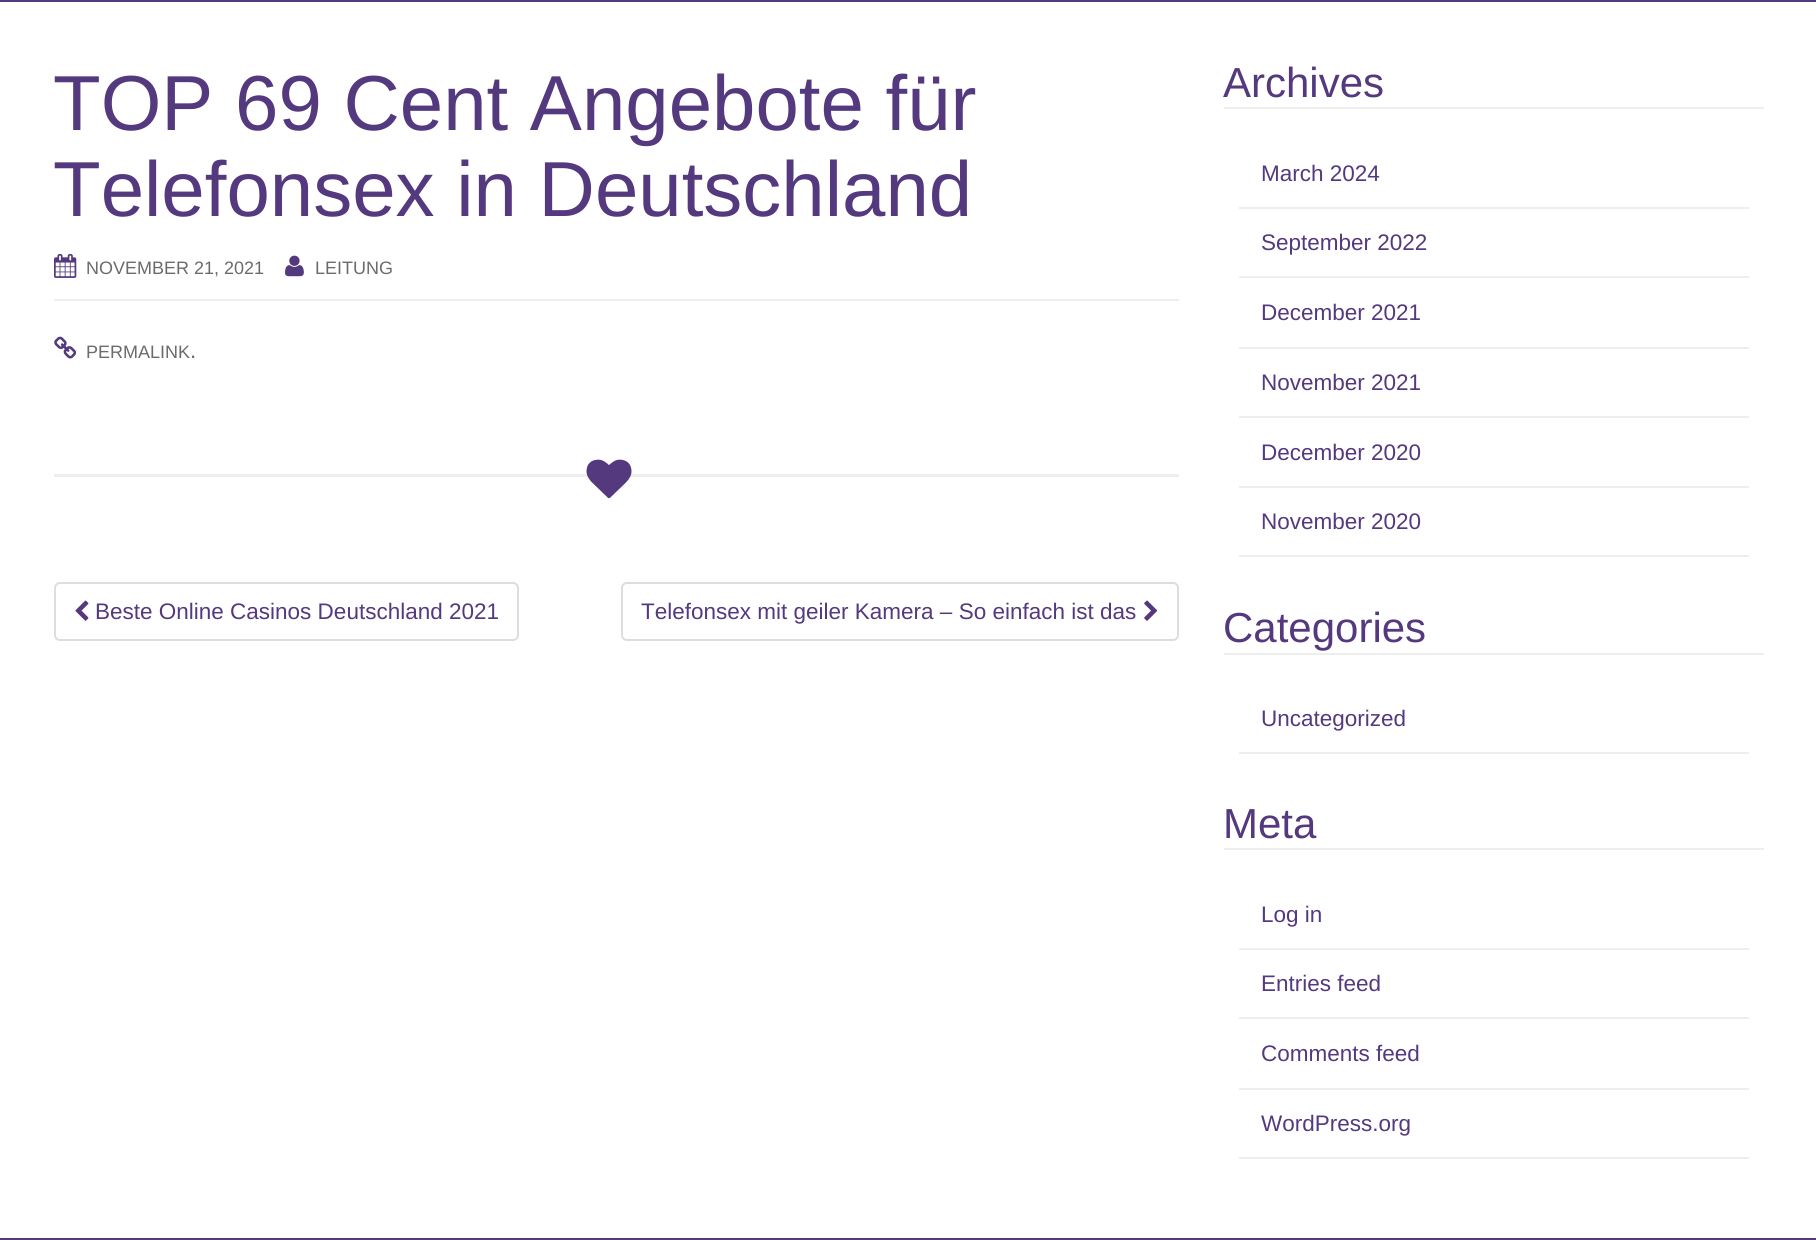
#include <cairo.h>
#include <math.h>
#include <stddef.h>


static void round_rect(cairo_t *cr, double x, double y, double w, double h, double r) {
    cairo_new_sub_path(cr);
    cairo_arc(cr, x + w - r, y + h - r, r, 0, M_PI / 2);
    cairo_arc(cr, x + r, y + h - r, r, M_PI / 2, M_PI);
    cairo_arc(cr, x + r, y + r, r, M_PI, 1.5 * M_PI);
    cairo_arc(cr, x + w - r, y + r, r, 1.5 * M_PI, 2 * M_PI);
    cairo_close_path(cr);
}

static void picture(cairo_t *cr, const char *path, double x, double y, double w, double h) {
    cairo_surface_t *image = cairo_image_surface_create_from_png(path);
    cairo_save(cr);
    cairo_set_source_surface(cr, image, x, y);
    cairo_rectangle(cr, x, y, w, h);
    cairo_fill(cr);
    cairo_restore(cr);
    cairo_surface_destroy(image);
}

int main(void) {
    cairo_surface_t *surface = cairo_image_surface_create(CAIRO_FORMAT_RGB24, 1816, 1240);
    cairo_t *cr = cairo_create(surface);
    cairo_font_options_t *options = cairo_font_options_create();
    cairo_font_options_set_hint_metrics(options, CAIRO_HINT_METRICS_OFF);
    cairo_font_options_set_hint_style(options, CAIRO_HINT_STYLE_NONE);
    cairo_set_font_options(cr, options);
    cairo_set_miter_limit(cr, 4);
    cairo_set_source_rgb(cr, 1, 1, 1);
    cairo_paint(cr);
    cairo_set_source_rgb(cr, 0.329, 0.224, 0.494);
    cairo_rectangle(cr, 0, 0, 1816, 2);
    cairo_fill(cr);
    cairo_set_source_rgb(cr, 0.933, 0.933, 0.933);
    cairo_rectangle(cr, 54, 299, 1125, 2);
    cairo_fill(cr);
    cairo_select_font_face(cr, "Liberation Sans", CAIRO_FONT_SLANT_NORMAL, CAIRO_FONT_WEIGHT_NORMAL);
    cairo_set_font_size(cr, 78);
    cairo_set_source_rgb(cr, 0.329, 0.224, 0.494);
    cairo_move_to(cr, 53, 130);
    cairo_show_text(cr, "TOP 69 Cent Angebote für");
    cairo_move_to(cr, 53, 216);
    cairo_show_text(cr, "Telefonsex in Deutschland");
    picture(cr, "img1.png", 54, 253, 23, 25);
    cairo_set_font_size(cr, 18);
    cairo_set_source_rgb(cr, 0.42, 0.42, 0.42);
    cairo_move_to(cr, 86, 274);
    cairo_show_text(cr, "NOVEMBER 21, 2021");
    picture(cr, "img2.png", 285, 255, 19, 22);
    cairo_move_to(cr, 315, 274);
    cairo_show_text(cr, "LEITUNG");
    picture(cr, "img3.png", 54, 336, 23, 23);
    cairo_move_to(cr, 86, 358);
    cairo_show_text(cr, "PERMALINK");
    cairo_set_font_size(cr, 22.5);
    cairo_move_to(cr, 190, 358);
    cairo_show_text(cr, ".");
    cairo_set_source_rgb(cr, 0.933, 0.933, 0.933);
    cairo_rectangle(cr, 54, 474, 1125, 3);
    cairo_fill(cr);
    picture(cr, "img4.png", 586, 459, 46, 40);
    round_rect(cr, 55, 583, 463, 57, 5);
    cairo_set_source_rgb(cr, 0.867, 0.867, 0.867);
    cairo_stroke(cr);
    picture(cr, "img5.png", 75, 600, 14, 21);
    cairo_set_source_rgb(cr, 0.329, 0.224, 0.494);
    cairo_move_to(cr, 95, 619);
    cairo_show_text(cr, "Beste Online Casinos Deutschland 2021");
    round_rect(cr, 622, 583, 556, 57, 5);
    cairo_set_source_rgb(cr, 0.867, 0.867, 0.867);
    cairo_stroke(cr);
    cairo_set_source_rgb(cr, 0.329, 0.224, 0.494);
    cairo_move_to(cr, 641, 619);
    cairo_show_text(cr, "Telefonsex mit geiler Kamera – So einfach ist das");
    picture(cr, "img6.png", 1144, 600, 14, 21);
    cairo_set_source_rgb(cr, 0.933, 0.933, 0.933);
    cairo_rectangle(cr, 1224, 107, 540, 2);
    cairo_fill(cr);
    cairo_set_font_size(cr, 42);
    cairo_set_source_rgb(cr, 0.329, 0.224, 0.494);
    cairo_move_to(cr, 1223, 97);
    cairo_show_text(cr, "Archives");
    cairo_set_source_rgb(cr, 0.933, 0.933, 0.933);
    cairo_rectangle(cr, 1239, 207, 510, 2);
    cairo_fill(cr);
    cairo_set_font_size(cr, 22.5);
    cairo_set_source_rgb(cr, 0.329, 0.224, 0.494);
    cairo_move_to(cr, 1261, 181);
    cairo_show_text(cr, "March 2024");
    cairo_set_source_rgb(cr, 0.933, 0.933, 0.933);
    cairo_rectangle(cr, 1239, 276, 510, 2);
    cairo_fill(cr);
    cairo_set_source_rgb(cr, 0.329, 0.224, 0.494);
    cairo_move_to(cr, 1261, 250);
    cairo_show_text(cr, "September 2022");
    cairo_set_source_rgb(cr, 0.933, 0.933, 0.933);
    cairo_rectangle(cr, 1239, 347, 510, 2);
    cairo_fill(cr);
    cairo_set_source_rgb(cr, 0.329, 0.224, 0.494);
    cairo_move_to(cr, 1261, 320);
    cairo_show_text(cr, "December 2021");
    cairo_set_source_rgb(cr, 0.933, 0.933, 0.933);
    cairo_rectangle(cr, 1239, 416, 510, 2);
    cairo_fill(cr);
    cairo_set_source_rgb(cr, 0.329, 0.224, 0.494);
    cairo_move_to(cr, 1261, 390);
    cairo_show_text(cr, "November 2021");
    cairo_set_source_rgb(cr, 0.933, 0.933, 0.933);
    cairo_rectangle(cr, 1239, 486, 510, 2);
    cairo_fill(cr);
    cairo_set_source_rgb(cr, 0.329, 0.224, 0.494);
    cairo_move_to(cr, 1261, 460);
    cairo_show_text(cr, "December 2020");
    cairo_set_source_rgb(cr, 0.933, 0.933, 0.933);
    cairo_rectangle(cr, 1239, 555, 510, 2);
    cairo_fill(cr);
    cairo_set_source_rgb(cr, 0.329, 0.224, 0.494);
    cairo_move_to(cr, 1261, 529);
    cairo_show_text(cr, "November 2020");
    cairo_set_source_rgb(cr, 0.933, 0.933, 0.933);
    cairo_rectangle(cr, 1224, 653, 540, 2);
    cairo_fill(cr);
    cairo_set_font_size(cr, 42);
    cairo_set_source_rgb(cr, 0.329, 0.224, 0.494);
    cairo_move_to(cr, 1223, 642);
    cairo_show_text(cr, "Categories");
    cairo_set_source_rgb(cr, 0.933, 0.933, 0.933);
    cairo_rectangle(cr, 1239, 752, 510, 2);
    cairo_fill(cr);
    cairo_set_font_size(cr, 22.5);
    cairo_set_source_rgb(cr, 0.329, 0.224, 0.494);
    cairo_move_to(cr, 1261, 726);
    cairo_show_text(cr, "Uncategorized");
    cairo_set_source_rgb(cr, 0.933, 0.933, 0.933);
    cairo_rectangle(cr, 1224, 848, 540, 2);
    cairo_fill(cr);
    cairo_set_font_size(cr, 42);
    cairo_set_source_rgb(cr, 0.329, 0.224, 0.494);
    cairo_move_to(cr, 1223, 838);
    cairo_show_text(cr, "Meta");
    cairo_set_source_rgb(cr, 0.933, 0.933, 0.933);
    cairo_rectangle(cr, 1239, 948, 510, 2);
    cairo_fill(cr);
    cairo_set_font_size(cr, 22.5);
    cairo_set_source_rgb(cr, 0.329, 0.224, 0.494);
    cairo_move_to(cr, 1261, 922);
    cairo_show_text(cr, "Log in");
    cairo_set_source_rgb(cr, 0.933, 0.933, 0.933);
    cairo_rectangle(cr, 1239, 1017, 510, 2);
    cairo_fill(cr);
    cairo_set_source_rgb(cr, 0.329, 0.224, 0.494);
    cairo_move_to(cr, 1261, 991);
    cairo_show_text(cr, "Entries feed");
    cairo_set_source_rgb(cr, 0.933, 0.933, 0.933);
    cairo_rectangle(cr, 1239, 1088, 510, 2);
    cairo_fill(cr);
    cairo_set_source_rgb(cr, 0.329, 0.224, 0.494);
    cairo_move_to(cr, 1261, 1061);
    cairo_show_text(cr, "Comments feed");
    cairo_set_source_rgb(cr, 0.933, 0.933, 0.933);
    cairo_rectangle(cr, 1239, 1157, 510, 2);
    cairo_fill(cr);
    cairo_set_source_rgb(cr, 0.329, 0.224, 0.494);
    cairo_move_to(cr, 1261, 1131);
    cairo_show_text(cr, "WordPress.org");
    cairo_rectangle(cr, 0, 1238, 1816, 2);
    cairo_fill(cr);
    cairo_surface_write_to_png(surface, "page.png");
    cairo_font_options_destroy(options);
    cairo_destroy(cr);
    cairo_surface_destroy(surface);
    return 0;
}
